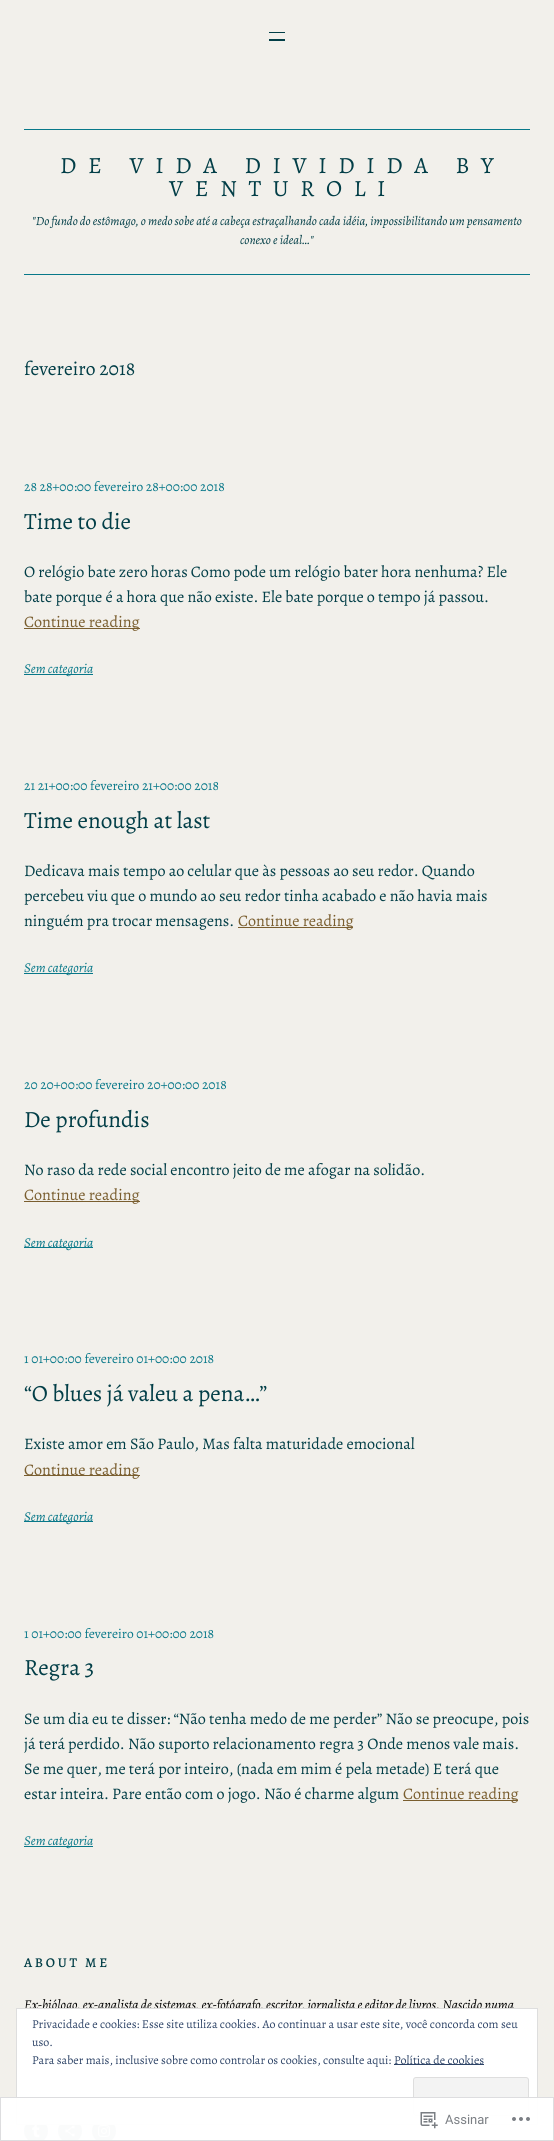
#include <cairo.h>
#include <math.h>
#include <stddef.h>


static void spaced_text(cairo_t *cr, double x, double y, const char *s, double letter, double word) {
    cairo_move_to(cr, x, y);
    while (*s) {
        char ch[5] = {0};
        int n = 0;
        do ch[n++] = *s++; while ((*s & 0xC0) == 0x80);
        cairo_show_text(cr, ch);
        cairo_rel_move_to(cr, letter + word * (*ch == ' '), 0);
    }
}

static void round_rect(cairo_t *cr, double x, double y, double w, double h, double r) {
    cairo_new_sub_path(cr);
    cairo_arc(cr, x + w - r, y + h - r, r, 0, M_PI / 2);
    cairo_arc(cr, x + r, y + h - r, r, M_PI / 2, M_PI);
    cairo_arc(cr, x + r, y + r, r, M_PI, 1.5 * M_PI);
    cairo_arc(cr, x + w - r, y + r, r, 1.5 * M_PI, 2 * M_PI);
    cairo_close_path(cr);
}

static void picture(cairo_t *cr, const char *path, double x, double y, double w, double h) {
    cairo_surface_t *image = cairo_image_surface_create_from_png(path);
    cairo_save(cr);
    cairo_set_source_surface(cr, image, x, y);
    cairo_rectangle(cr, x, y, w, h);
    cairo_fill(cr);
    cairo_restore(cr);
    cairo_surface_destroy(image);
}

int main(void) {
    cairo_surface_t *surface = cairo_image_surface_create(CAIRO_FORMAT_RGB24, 554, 2141);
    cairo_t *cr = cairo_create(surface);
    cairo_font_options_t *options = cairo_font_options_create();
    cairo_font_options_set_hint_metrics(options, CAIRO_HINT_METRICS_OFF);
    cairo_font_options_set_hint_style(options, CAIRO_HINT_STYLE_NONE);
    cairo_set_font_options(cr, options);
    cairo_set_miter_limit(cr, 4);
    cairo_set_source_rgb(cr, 0.949, 0.941, 0.918);
    cairo_paint(cr);
    cairo_set_source_rgb(cr, 0.008, 0.243, 0.278);
    cairo_rectangle(cr, 269, 32, 16, 1);
    cairo_fill(cr);
    cairo_rectangle(cr, 269, 39, 16, 2);
    cairo_fill(cr);
    cairo_set_source_rgb(cr, 0.035, 0.471, 0.537);
    cairo_rectangle(cr, 24, 129, 506, 1);
    cairo_fill(cr);
    cairo_select_font_face(cr, "Alegreya", CAIRO_FONT_SLANT_NORMAL, CAIRO_FONT_WEIGHT_NORMAL);
    cairo_set_font_size(cr, 23.25);
    cairo_set_source_rgb(cr, 0.008, 0.243, 0.278);
    spaced_text(cr, 60, 173, "DE VIDA DIVIDIDA BY", 11.6, 0);
    spaced_text(cr, 169, 196, "VENTUROLI", 11.6, 0);
    cairo_select_font_face(cr, "Alegreya", CAIRO_FONT_SLANT_ITALIC, CAIRO_FONT_WEIGHT_NORMAL);
    cairo_set_font_size(cr, 12.5);
    cairo_move_to(cr, 32, 225);
    cairo_show_text(cr, "\"Do fundo do estômago, o medo sobe até a cabeça estraçalhando cada idéia, impossibilitando um pensamento");
    cairo_move_to(cr, 240, 244);
    cairo_show_text(cr, "conexo e ideal…\"");
    cairo_set_source_rgb(cr, 0.035, 0.471, 0.537);
    cairo_rectangle(cr, 24, 274, 506, 1);
    cairo_fill(cr);
    cairo_select_font_face(cr, "Alegreya", CAIRO_FONT_SLANT_NORMAL, CAIRO_FONT_WEIGHT_NORMAL);
    cairo_set_font_size(cr, 19.5);
    cairo_set_source_rgb(cr, 0.008, 0.243, 0.278);
    cairo_move_to(cr, 24, 375);
    cairo_show_text(cr, "fevereiro 2018");
    cairo_set_font_size(cr, 13.45);
    cairo_set_source_rgb(cr, 0.035, 0.471, 0.537);
    cairo_move_to(cr, 24, 491);
    cairo_show_text(cr, "28 28+00:00 fevereiro 28+00:00 2018");
    cairo_set_font_size(cr, 23.25);
    cairo_set_source_rgb(cr, 0.008, 0.243, 0.278);
    cairo_move_to(cr, 24, 529);
    cairo_show_text(cr, "Time to die");
    cairo_set_font_size(cr, 16.1);
    cairo_move_to(cr, 24, 577);
    cairo_show_text(cr, "O relógio bate zero horas Como pode um relógio bater hora nenhuma? Ele");
    cairo_move_to(cr, 24, 602);
    cairo_show_text(cr, "bate porque é a hora que não existe. Ele bate porque o tempo já passou.");
    cairo_set_source_rgb(cr, 0.478, 0.369, 0.184);
    cairo_rectangle(cr, 24, 628, 116, 1);
    cairo_fill(cr);
    cairo_move_to(cr, 24, 627);
    cairo_show_text(cr, "Continue reading");
    cairo_set_source_rgb(cr, 0.035, 0.471, 0.537);
    cairo_rectangle(cr, 24, 674, 69, 1);
    cairo_fill(cr);
    cairo_select_font_face(cr, "Alegreya", CAIRO_FONT_SLANT_ITALIC, CAIRO_FONT_WEIGHT_NORMAL);
    cairo_set_font_size(cr, 13.45);
    cairo_move_to(cr, 24, 673);
    cairo_show_text(cr, "Sem categoria");
    cairo_select_font_face(cr, "Alegreya", CAIRO_FONT_SLANT_NORMAL, CAIRO_FONT_WEIGHT_NORMAL);
    cairo_move_to(cr, 24, 790);
    cairo_show_text(cr, "21 21+00:00 fevereiro 21+00:00 2018");
    cairo_set_font_size(cr, 23.25);
    cairo_set_source_rgb(cr, 0.008, 0.243, 0.278);
    cairo_move_to(cr, 24, 828);
    cairo_show_text(cr, "Time enough at last");
    cairo_set_font_size(cr, 16.1);
    cairo_move_to(cr, 24, 876);
    cairo_show_text(cr, "Dedicava mais tempo ao celular que às pessoas ao seu redor. Quando");
    cairo_move_to(cr, 24, 901);
    cairo_show_text(cr, "percebeu viu que o mundo ao seu redor tinha acabado e não havia mais");
    cairo_move_to(cr, 24, 926);
    cairo_show_text(cr, "ninguém pra trocar mensagens.");
    cairo_set_source_rgb(cr, 0.478, 0.369, 0.184);
    cairo_rectangle(cr, 238, 927, 115, 1);
    cairo_fill(cr);
    cairo_move_to(cr, 238, 926);
    cairo_show_text(cr, "Continue reading");
    cairo_set_source_rgb(cr, 0.035, 0.471, 0.537);
    cairo_rectangle(cr, 24, 973, 69, 1);
    cairo_fill(cr);
    cairo_select_font_face(cr, "Alegreya", CAIRO_FONT_SLANT_ITALIC, CAIRO_FONT_WEIGHT_NORMAL);
    cairo_set_font_size(cr, 13.45);
    cairo_move_to(cr, 24, 972);
    cairo_show_text(cr, "Sem categoria");
    cairo_select_font_face(cr, "Alegreya", CAIRO_FONT_SLANT_NORMAL, CAIRO_FONT_WEIGHT_NORMAL);
    cairo_move_to(cr, 24, 1089);
    cairo_show_text(cr, "20 20+00:00 fevereiro 20+00:00 2018");
    cairo_set_font_size(cr, 23.25);
    cairo_set_source_rgb(cr, 0.008, 0.243, 0.278);
    cairo_move_to(cr, 24, 1127);
    cairo_show_text(cr, "De profundis");
    cairo_set_font_size(cr, 16.1);
    cairo_move_to(cr, 24, 1175);
    cairo_show_text(cr, "No raso da rede social encontro jeito de me afogar na solidão.");
    cairo_set_source_rgb(cr, 0.478, 0.369, 0.184);
    cairo_rectangle(cr, 24, 1201, 116, 1);
    cairo_fill(cr);
    cairo_move_to(cr, 24, 1200);
    cairo_show_text(cr, "Continue reading");
    cairo_set_source_rgb(cr, 0.035, 0.471, 0.537);
    cairo_rectangle(cr, 24, 1247, 69, 1);
    cairo_fill(cr);
    cairo_select_font_face(cr, "Alegreya", CAIRO_FONT_SLANT_ITALIC, CAIRO_FONT_WEIGHT_NORMAL);
    cairo_set_font_size(cr, 13.45);
    cairo_move_to(cr, 24, 1247);
    cairo_show_text(cr, "Sem categoria");
    cairo_select_font_face(cr, "Alegreya", CAIRO_FONT_SLANT_NORMAL, CAIRO_FONT_WEIGHT_NORMAL);
    cairo_move_to(cr, 24, 1363);
    cairo_show_text(cr, "1 01+00:00 fevereiro 01+00:00 2018");
    cairo_set_font_size(cr, 23.25);
    cairo_set_source_rgb(cr, 0.008, 0.243, 0.278);
    cairo_move_to(cr, 24, 1401);
    cairo_show_text(cr, "“O blues já valeu a pena…”");
    cairo_set_font_size(cr, 16.1);
    cairo_move_to(cr, 24, 1449);
    cairo_show_text(cr, "Existe amor em São Paulo, Mas falta maturidade emocional");
    cairo_set_source_rgb(cr, 0.478, 0.369, 0.184);
    cairo_rectangle(cr, 24, 1475, 116, 1);
    cairo_fill(cr);
    cairo_move_to(cr, 24, 1475);
    cairo_show_text(cr, "Continue reading");
    cairo_set_source_rgb(cr, 0.035, 0.471, 0.537);
    cairo_rectangle(cr, 24, 1521, 69, 1);
    cairo_fill(cr);
    cairo_select_font_face(cr, "Alegreya", CAIRO_FONT_SLANT_ITALIC, CAIRO_FONT_WEIGHT_NORMAL);
    cairo_set_font_size(cr, 13.45);
    cairo_move_to(cr, 24, 1521);
    cairo_show_text(cr, "Sem categoria");
    cairo_select_font_face(cr, "Alegreya", CAIRO_FONT_SLANT_NORMAL, CAIRO_FONT_WEIGHT_NORMAL);
    cairo_move_to(cr, 24, 1638);
    cairo_show_text(cr, "1 01+00:00 fevereiro 01+00:00 2018");
    cairo_set_font_size(cr, 23.25);
    cairo_set_source_rgb(cr, 0.008, 0.243, 0.278);
    cairo_move_to(cr, 24, 1675);
    cairo_show_text(cr, "Regra 3");
    cairo_set_font_size(cr, 16.1);
    cairo_move_to(cr, 24, 1724);
    cairo_show_text(cr, "Se um dia eu te disser: “Não tenha medo de me perder” Não se preocupe, pois");
    cairo_move_to(cr, 24, 1749);
    cairo_show_text(cr, "já terá perdido. Não suporto relacionamento regra 3 Onde menos vale mais.");
    cairo_move_to(cr, 24, 1774);
    cairo_show_text(cr, "Se me quer, me terá por inteiro, (nada em mim é pela metade) E terá que");
    cairo_move_to(cr, 24, 1799);
    cairo_show_text(cr, "estar inteira. Pare então com o jogo. Não é charme algum");
    cairo_set_source_rgb(cr, 0.478, 0.369, 0.184);
    cairo_rectangle(cr, 403, 1800, 115, 1);
    cairo_fill(cr);
    cairo_move_to(cr, 403, 1799);
    cairo_show_text(cr, "Continue reading");
    cairo_set_source_rgb(cr, 0.035, 0.471, 0.537);
    cairo_rectangle(cr, 24, 1846, 69, 1);
    cairo_fill(cr);
    cairo_select_font_face(cr, "Alegreya", CAIRO_FONT_SLANT_ITALIC, CAIRO_FONT_WEIGHT_NORMAL);
    cairo_set_font_size(cr, 13.45);
    cairo_move_to(cr, 24, 1845);
    cairo_show_text(cr, "Sem categoria");
    cairo_select_font_face(cr, "Alegreya Medium", CAIRO_FONT_SLANT_NORMAL, CAIRO_FONT_WEIGHT_NORMAL);
    cairo_set_source_rgb(cr, 0.008, 0.243, 0.278);
    spaced_text(cr, 24, 1967, "ABOUT ME", 2.75, 0);
    cairo_select_font_face(cr, "Alegreya", CAIRO_FONT_SLANT_ITALIC, CAIRO_FONT_WEIGHT_NORMAL);
    cairo_set_source_rgb(cr, 0, 0, 0);
    cairo_move_to(cr, 24, 2009);
    cairo_show_text(cr, "Ex-biólogo, ex-analista de sistemas, ex-fotógrafo, escritor, jornalista e editor de livros. Nascido numa");
    cairo_set_source_rgb(cr, 0.008, 0.243, 0.278);
    cairo_new_path(cr);
    cairo_arc(cr, 36, 2131, 12, 0, 2 * M_PI);
    cairo_fill(cr);
    picture(cr, "img1.png", 32, 2125, 8, 13);
    cairo_arc(cr, 70, 2131, 12, 0, 2 * M_PI);
    cairo_fill(cr);
    picture(cr, "img2.png", 65, 2125, 10, 12);
    cairo_arc(cr, 104, 2131, 12, 0, 2 * M_PI);
    cairo_fill(cr);
    picture(cr, "img3.png", 98, 2125, 12, 12);
    cairo_set_source_rgb(cr, 1, 1, 1);
    cairo_rectangle(cr, 16.5, 2008.5, 521, 116);
    cairo_fill_preserve(cr);
    cairo_set_source_rgb(cr, 0.871, 0.871, 0.871);
    cairo_set_line_width(cr, 1);
    cairo_stroke(cr);
    cairo_select_font_face(cr, "Alegreya", CAIRO_FONT_SLANT_NORMAL, CAIRO_FONT_WEIGHT_NORMAL);
    cairo_set_font_size(cr, 12);
    cairo_set_source_rgb(cr, 0.18, 0.267, 0.404);
    cairo_move_to(cr, 32, 2028);
    cairo_show_text(cr, "Privacidade e cookies: Esse site utiliza cookies. Ao continuar a usar este site, você concorda com seu");
    cairo_move_to(cr, 32, 2046);
    cairo_show_text(cr, "uso.");
    cairo_move_to(cr, 32, 2064);
    cairo_show_text(cr, "Para saber mais, inclusive sobre como controlar os cookies, consulte aqui:");
    cairo_rectangle(cr, 394, 2064, 90, 1);
    cairo_fill(cr);
    cairo_move_to(cr, 394, 2064);
    cairo_show_text(cr, "Política de cookies");
    cairo_set_source_rgb(cr, 0.953, 0.953, 0.953);
    round_rect(cr, 413.5, 2077.5, 115, 38, 2.5);
    cairo_fill_preserve(cr);
    cairo_set_source_rgb(cr, 0.871, 0.871, 0.871);
    cairo_stroke(cr);
    cairo_set_source_rgba(cr, 1, 1, 1, 0.98);
    cairo_rectangle(cr, 0, 2097, 554, 44);
    cairo_fill(cr);
    cairo_rectangle(cr, 0.5, 2097.5, 553, 43);
    cairo_set_source_rgba(cr, 0.863, 0.863, 0.871, 0.98);
    cairo_stroke(cr);
    picture(cr, "img4.png", 420, 2112, 18, 17);
    cairo_select_font_face(cr, "Roboto", CAIRO_FONT_SLANT_NORMAL, CAIRO_FONT_WEIGHT_NORMAL);
    cairo_set_font_size(cr, 13);
    cairo_set_source_rgb(cr, 0.482, 0.498, 0.518);
    cairo_move_to(cr, 445, 2124);
    cairo_show_text(cr, "Assinar");
    picture(cr, "img5.png", 512, 2117, 18, 4);
    cairo_surface_write_to_png(surface, "page.png");
    cairo_font_options_destroy(options);
    cairo_destroy(cr);
    cairo_surface_destroy(surface);
    return 0;
}
